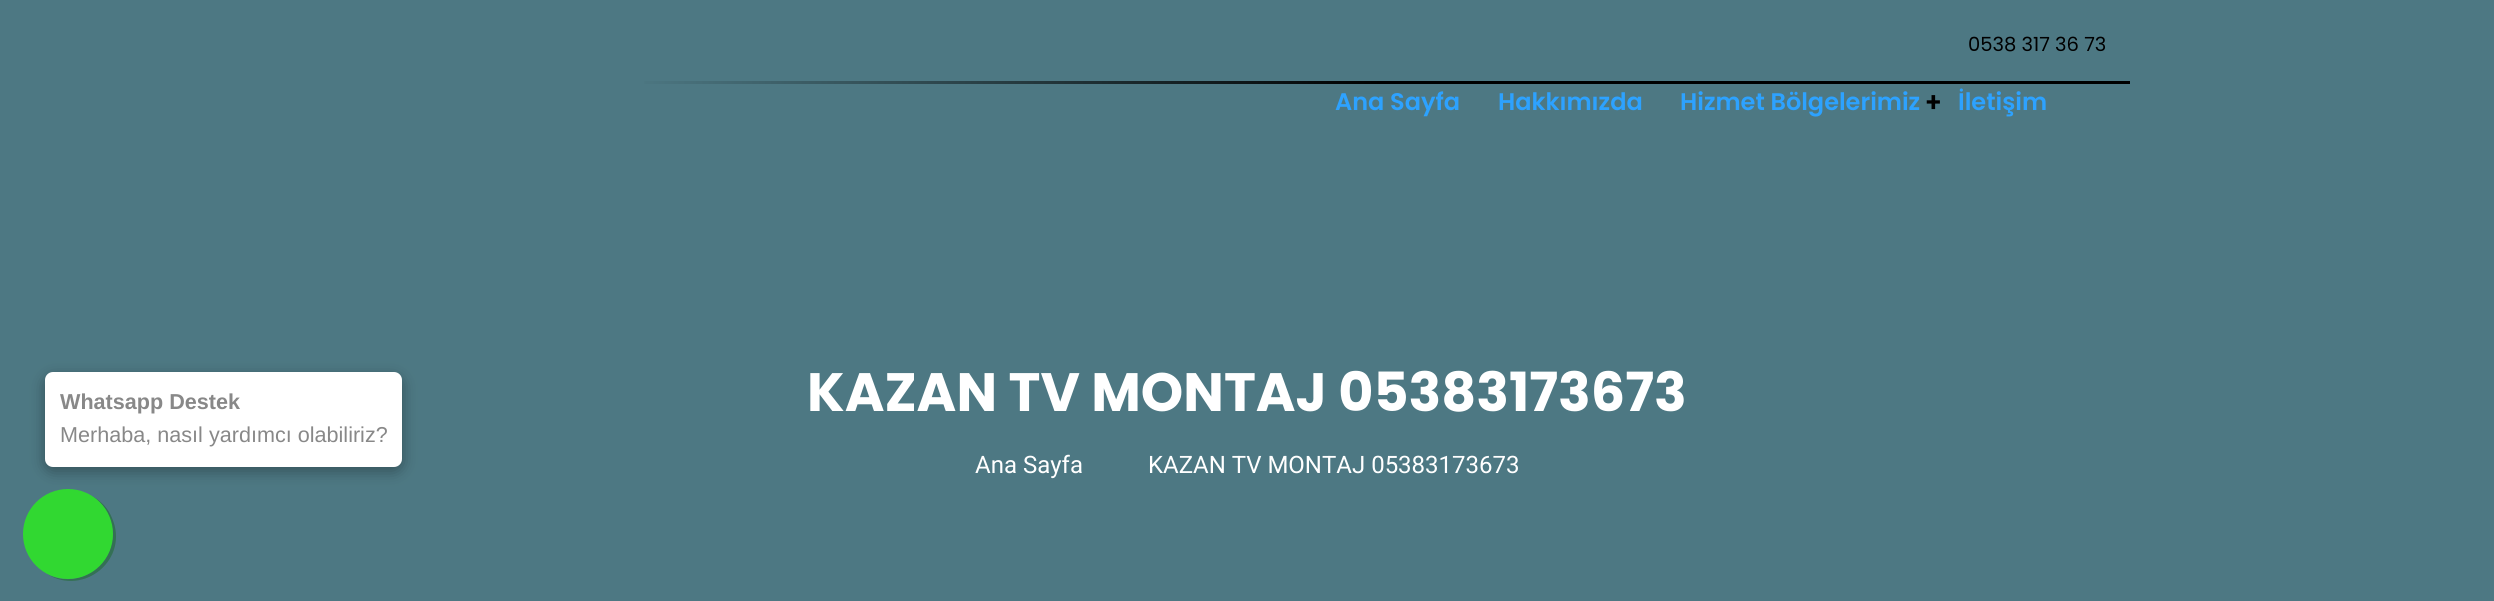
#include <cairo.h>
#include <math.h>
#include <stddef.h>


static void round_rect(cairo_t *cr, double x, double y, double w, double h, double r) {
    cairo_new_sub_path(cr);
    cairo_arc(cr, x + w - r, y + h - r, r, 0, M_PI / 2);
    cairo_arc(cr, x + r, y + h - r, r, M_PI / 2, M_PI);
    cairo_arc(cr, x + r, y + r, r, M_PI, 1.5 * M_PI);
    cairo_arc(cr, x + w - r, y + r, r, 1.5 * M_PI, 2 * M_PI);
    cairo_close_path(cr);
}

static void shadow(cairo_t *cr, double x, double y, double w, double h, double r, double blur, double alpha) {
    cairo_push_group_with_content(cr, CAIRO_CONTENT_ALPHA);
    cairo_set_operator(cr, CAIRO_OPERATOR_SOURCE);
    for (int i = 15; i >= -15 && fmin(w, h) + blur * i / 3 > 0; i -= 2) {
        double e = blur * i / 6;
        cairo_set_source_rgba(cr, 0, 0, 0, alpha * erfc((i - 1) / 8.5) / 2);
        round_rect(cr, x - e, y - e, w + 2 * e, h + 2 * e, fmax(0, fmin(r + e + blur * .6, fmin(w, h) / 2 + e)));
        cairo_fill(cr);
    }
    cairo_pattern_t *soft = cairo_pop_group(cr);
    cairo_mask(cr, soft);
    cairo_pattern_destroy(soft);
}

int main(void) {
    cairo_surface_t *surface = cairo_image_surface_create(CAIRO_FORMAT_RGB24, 2494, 601);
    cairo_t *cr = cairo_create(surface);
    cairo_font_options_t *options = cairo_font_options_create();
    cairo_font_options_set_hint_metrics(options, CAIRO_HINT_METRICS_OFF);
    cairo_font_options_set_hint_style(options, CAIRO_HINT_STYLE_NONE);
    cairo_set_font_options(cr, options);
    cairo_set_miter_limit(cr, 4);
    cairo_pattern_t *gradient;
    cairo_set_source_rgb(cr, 0.302, 0.471, 0.514);
    cairo_paint(cr);
    cairo_select_font_face(cr, "Poppins", CAIRO_FONT_SLANT_NORMAL, CAIRO_FONT_WEIGHT_NORMAL);
    cairo_set_font_size(cr, 19.5);
    cairo_set_source_rgb(cr, 0, 0, 0);
    cairo_move_to(cr, 1968, 51);
    cairo_show_text(cr, "0538 317 36 73");
    gradient = cairo_pattern_create_linear(630, 83, 2130, 82);
    cairo_pattern_add_color_stop_rgba(gradient, 0, 0.302, 0.471, 0.514, 1);
    cairo_pattern_add_color_stop_rgba(gradient, 0.5, 0, 0, 0, 1);
    cairo_pattern_add_color_stop_rgba(gradient, 1, 0, 0, 0, 1);
    cairo_set_source(cr, gradient);
    cairo_pattern_destroy(gradient);
    cairo_rectangle(cr, 644, 81, 1486, 3);
    cairo_fill(cr);
    cairo_select_font_face(cr, "Poppins SemiBold", CAIRO_FONT_SLANT_NORMAL, CAIRO_FONT_WEIGHT_NORMAL);
    cairo_set_font_size(cr, 24);
    cairo_set_source_rgb(cr, 0.176, 0.635, 1);
    cairo_move_to(cr, 1335, 110);
    cairo_show_text(cr, "Ana Sayfa");
    cairo_move_to(cr, 1498, 110);
    cairo_show_text(cr, "Hakkımızda");
    cairo_move_to(cr, 1680, 110);
    cairo_show_text(cr, "Hizmet Bölgelerimiz");
    cairo_select_font_face(cr, "Roboto", CAIRO_FONT_SLANT_NORMAL, CAIRO_FONT_WEIGHT_BOLD);
    cairo_set_font_size(cr, 27);
    cairo_set_source_rgb(cr, 0, 0, 0);
    cairo_move_to(cr, 1926, 111);
    cairo_show_text(cr, "+");
    cairo_select_font_face(cr, "Poppins SemiBold", CAIRO_FONT_SLANT_NORMAL, CAIRO_FONT_WEIGHT_NORMAL);
    cairo_set_font_size(cr, 24);
    cairo_set_source_rgb(cr, 0.176, 0.635, 1);
    cairo_move_to(cr, 1958, 110);
    cairo_show_text(cr, "İletişim");
    cairo_set_source_rgb(cr, 0, 0, 0);
    shadow(cr, 45, 377, 357, 94, 8, 7.5, 0.34);
    cairo_set_source_rgb(cr, 1, 1, 1);
    round_rect(cr, 45, 372, 357, 95, 8);
    cairo_fill(cr);
    cairo_select_font_face(cr, "Liberation Sans", CAIRO_FONT_SLANT_NORMAL, CAIRO_FONT_WEIGHT_BOLD);
    cairo_set_font_size(cr, 21.6);
    cairo_set_source_rgb(cr, 0.533, 0.533, 0.533);
    cairo_move_to(cr, 60, 409);
    cairo_show_text(cr, "Whatsapp Destek");
    cairo_select_font_face(cr, "Liberation Sans", CAIRO_FONT_SLANT_NORMAL, CAIRO_FONT_WEIGHT_NORMAL);
    cairo_move_to(cr, 60, 442);
    cairo_show_text(cr, "Merhaba, nasıl yardımcı olabiliriz?");
    cairo_set_source_rgb(cr, 0.204, 0.439, 0.333);
    cairo_new_path(cr);
    cairo_move_to(cr, 47, 574);
    cairo_curve_to(cr, 84, 597, 130, 559, 112, 518);
    cairo_curve_to(cr, 108, 508, 101, 501, 92, 496);
    cairo_curve_to(cr, 99, 501, 106, 508, 109, 517);
    cairo_curve_to(cr, 125, 556, 83, 593, 47, 574);
    cairo_close_path(cr);
    cairo_fill(cr);
    cairo_set_source_rgb(cr, 0.192, 0.847, 0.192);
    cairo_arc(cr, 68, 534, 45, 0, 2 * M_PI);
    cairo_fill(cr);
    cairo_select_font_face(cr, "Poppins", CAIRO_FONT_SLANT_NORMAL, CAIRO_FONT_WEIGHT_BOLD);
    cairo_set_font_size(cr, 54);
    cairo_set_source_rgb(cr, 1, 1, 1);
    cairo_move_to(cr, 807, 411);
    cairo_show_text(cr, "KAZAN TV MONTAJ 05383173673");
    cairo_select_font_face(cr, "Roboto", CAIRO_FONT_SLANT_NORMAL, CAIRO_FONT_WEIGHT_NORMAL);
    cairo_set_font_size(cr, 24);
    cairo_move_to(cr, 975, 473);
    cairo_show_text(cr, "Ana Sayfa");
    cairo_move_to(cr, 1148, 473);
    cairo_show_text(cr, "KAZAN TV MONTAJ 05383173673");
    cairo_surface_write_to_png(surface, "page.png");
    cairo_font_options_destroy(options);
    cairo_destroy(cr);
    cairo_surface_destroy(surface);
    return 0;
}
